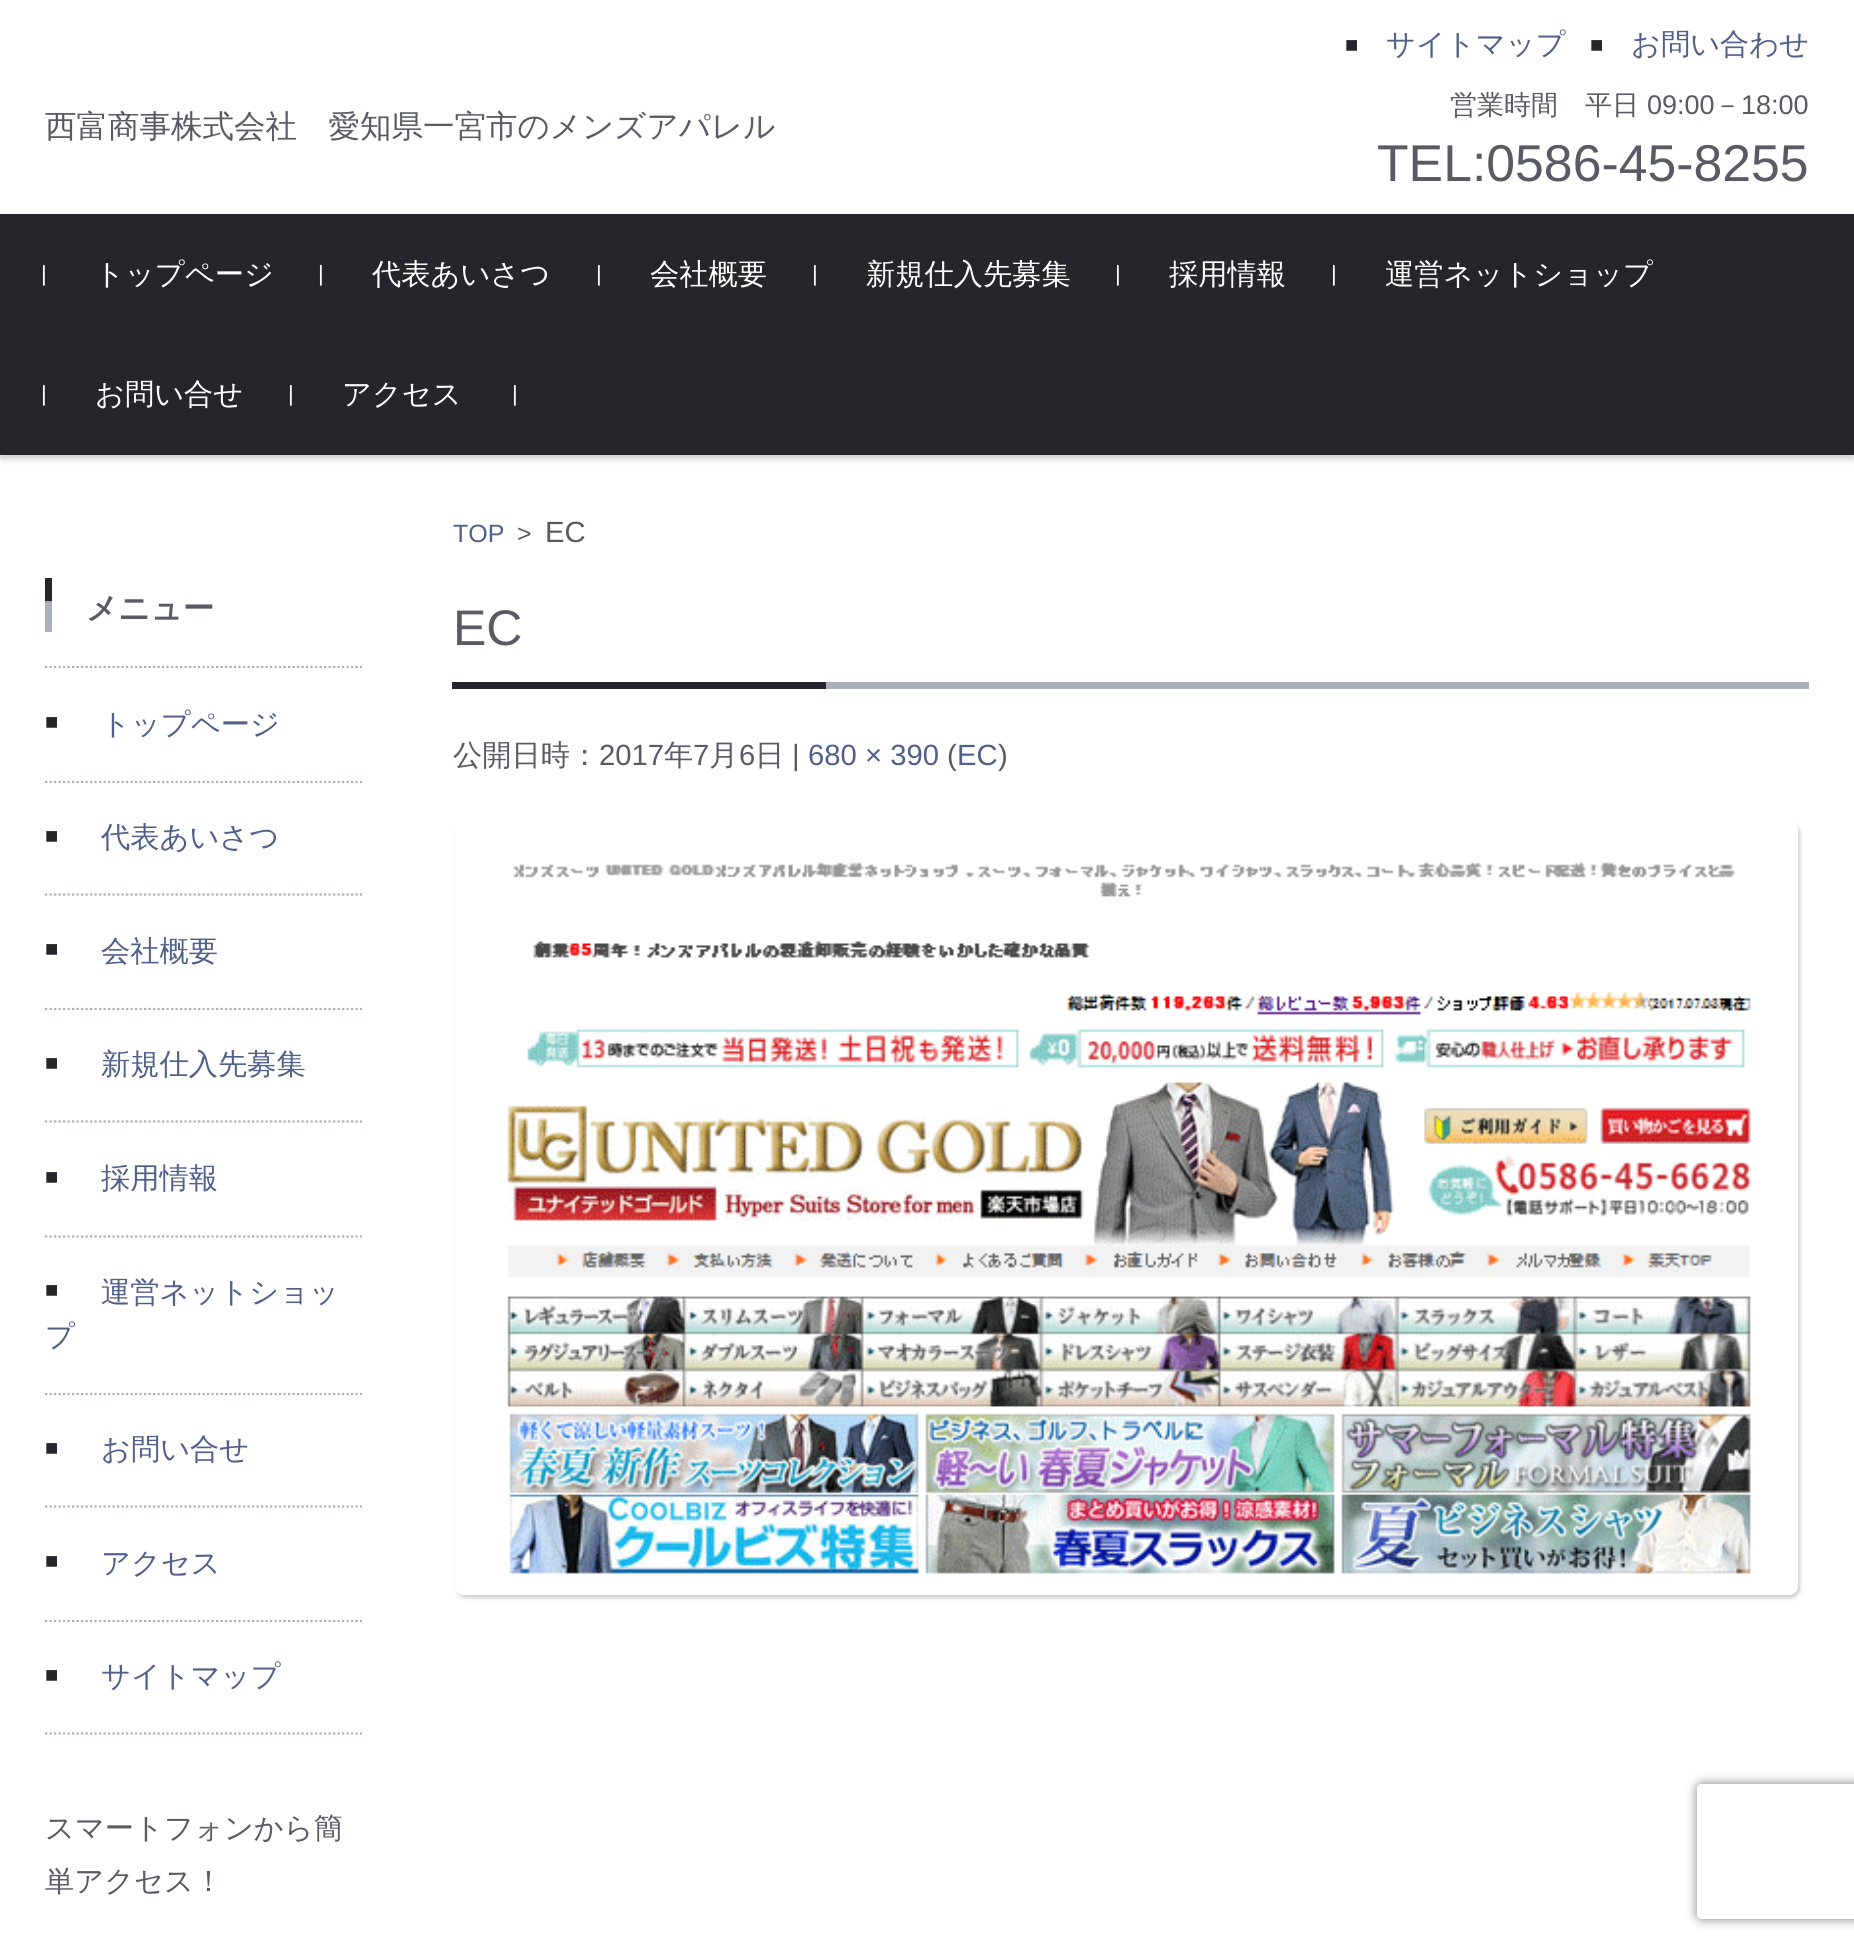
#include <cairo.h>
#include <math.h>
#include <stddef.h>


static void round_rect(cairo_t *cr, double x, double y, double w, double h, double r) {
    cairo_new_sub_path(cr);
    cairo_arc(cr, x + w - r, y + h - r, r, 0, M_PI / 2);
    cairo_arc(cr, x + r, y + h - r, r, M_PI / 2, M_PI);
    cairo_arc(cr, x + r, y + r, r, M_PI, 1.5 * M_PI);
    cairo_arc(cr, x + w - r, y + r, r, 1.5 * M_PI, 2 * M_PI);
    cairo_close_path(cr);
}

static void shadow(cairo_t *cr, double x, double y, double w, double h, double r, double blur, double alpha) {
    cairo_push_group_with_content(cr, CAIRO_CONTENT_ALPHA);
    cairo_set_operator(cr, CAIRO_OPERATOR_SOURCE);
    for (int i = 15; i >= -15 && fmin(w, h) + blur * i / 3 > 0; i -= 2) {
        double e = blur * i / 6;
        cairo_set_source_rgba(cr, 0, 0, 0, alpha * erfc((i - 1) / 8.5) / 2);
        round_rect(cr, x - e, y - e, w + 2 * e, h + 2 * e, fmax(0, fmin(r + e + blur * .6, fmin(w, h) / 2 + e)));
        cairo_fill(cr);
    }
    cairo_pattern_t *soft = cairo_pop_group(cr);
    cairo_mask(cr, soft);
    cairo_pattern_destroy(soft);
}

static void picture(cairo_t *cr, const char *path, double x, double y, double w, double h) {
    cairo_surface_t *image = cairo_image_surface_create_from_png(path);
    cairo_save(cr);
    cairo_set_source_surface(cr, image, x, y);
    cairo_rectangle(cr, x, y, w, h);
    cairo_fill(cr);
    cairo_restore(cr);
    cairo_surface_destroy(image);
}

int main(void) {
    cairo_surface_t *surface = cairo_image_surface_create(CAIRO_FORMAT_RGB24, 1854, 1950);
    cairo_t *cr = cairo_create(surface);
    cairo_font_options_t *options = cairo_font_options_create();
    cairo_font_options_set_hint_metrics(options, CAIRO_HINT_METRICS_OFF);
    cairo_font_options_set_hint_style(options, CAIRO_HINT_STYLE_NONE);
    cairo_set_font_options(cr, options);
    cairo_set_miter_limit(cr, 4);
    cairo_set_source_rgb(cr, 1, 1, 1);
    cairo_paint(cr);
    cairo_select_font_face(cr, "WenQuanYi Zen Hei Medium", CAIRO_FONT_SLANT_NORMAL, CAIRO_FONT_WEIGHT_NORMAL);
    cairo_set_font_size(cr, 31.5);
    cairo_set_source_rgb(cr, 0.345, 0.357, 0.4);
    cairo_move_to(cr, 45, 137);
    cairo_show_text(cr, "西富商事株式会社　愛知県一宮市のメンズアパレル");
    cairo_select_font_face(cr, "Liberation Sans", CAIRO_FONT_SLANT_NORMAL, CAIRO_FONT_WEIGHT_NORMAL);
    cairo_set_font_size(cr, 22);
    cairo_set_source_rgb(cr, 0.145, 0.149, 0.169);
    cairo_move_to(cr, 1345, 52);
    cairo_show_text(cr, "■");
    cairo_select_font_face(cr, "WenQuanYi Zen Hei Medium", CAIRO_FONT_SLANT_NORMAL, CAIRO_FONT_WEIGHT_NORMAL);
    cairo_set_font_size(cr, 29.25);
    cairo_set_source_rgb(cr, 0.314, 0.376, 0.545);
    cairo_move_to(cr, 1386, 54);
    cairo_show_text(cr, "サイトマップ");
    cairo_select_font_face(cr, "Liberation Sans", CAIRO_FONT_SLANT_NORMAL, CAIRO_FONT_WEIGHT_NORMAL);
    cairo_set_font_size(cr, 22);
    cairo_set_source_rgb(cr, 0.145, 0.149, 0.169);
    cairo_move_to(cr, 1590, 52);
    cairo_show_text(cr, "■");
    cairo_select_font_face(cr, "WenQuanYi Zen Hei Medium", CAIRO_FONT_SLANT_NORMAL, CAIRO_FONT_WEIGHT_NORMAL);
    cairo_set_font_size(cr, 29.25);
    cairo_set_source_rgb(cr, 0.314, 0.376, 0.545);
    cairo_move_to(cr, 1631, 54);
    cairo_show_text(cr, "お問い合わせ");
    cairo_set_font_size(cr, 27);
    cairo_set_source_rgb(cr, 0.345, 0.357, 0.4);
    cairo_move_to(cr, 1450, 114);
    cairo_show_text(cr, "営業時間　平日");
    cairo_select_font_face(cr, "Liberation Sans", CAIRO_FONT_SLANT_NORMAL, CAIRO_FONT_WEIGHT_NORMAL);
    cairo_move_to(cr, 1647, 114);
    cairo_show_text(cr, "09:00");
    cairo_select_font_face(cr, "WenQuanYi Zen Hei Medium", CAIRO_FONT_SLANT_NORMAL, CAIRO_FONT_WEIGHT_NORMAL);
    cairo_move_to(cr, 1714, 114);
    cairo_show_text(cr, "－");
    cairo_select_font_face(cr, "Liberation Sans", CAIRO_FONT_SLANT_NORMAL, CAIRO_FONT_WEIGHT_NORMAL);
    cairo_move_to(cr, 1741, 114);
    cairo_show_text(cr, "18:00");
    cairo_set_font_size(cr, 51.75);
    cairo_move_to(cr, 1377, 181);
    cairo_show_text(cr, "TEL:0586-45-8255");
    cairo_set_source_rgb(cr, 0, 0, 0);
    shadow(cr, 0, 218, 1854, 241, 0, 3.5, 0.2);
    cairo_set_source_rgb(cr, 0.145, 0.149, 0.169);
    cairo_rectangle(cr, 0, 214, 1854, 241);
    cairo_fill(cr);
    cairo_set_font_size(cr, 22);
    cairo_set_source_rgb(cr, 1, 1, 1);
    cairo_move_to(cr, 41, 281);
    cairo_show_text(cr, "|");
    cairo_select_font_face(cr, "WenQuanYi Zen Hei Medium", CAIRO_FONT_SLANT_NORMAL, CAIRO_FONT_WEIGHT_NORMAL);
    cairo_set_font_size(cr, 29.25);
    cairo_move_to(cr, 95, 284);
    cairo_show_text(cr, "トップページ");
    cairo_select_font_face(cr, "Liberation Sans", CAIRO_FONT_SLANT_NORMAL, CAIRO_FONT_WEIGHT_NORMAL);
    cairo_set_font_size(cr, 22);
    cairo_move_to(cr, 318, 281);
    cairo_show_text(cr, "|");
    cairo_select_font_face(cr, "WenQuanYi Zen Hei Medium", CAIRO_FONT_SLANT_NORMAL, CAIRO_FONT_WEIGHT_NORMAL);
    cairo_set_font_size(cr, 29.25);
    cairo_move_to(cr, 372, 284);
    cairo_show_text(cr, "代表あいさつ");
    cairo_select_font_face(cr, "Liberation Sans", CAIRO_FONT_SLANT_NORMAL, CAIRO_FONT_WEIGHT_NORMAL);
    cairo_set_font_size(cr, 22);
    cairo_move_to(cr, 596, 281);
    cairo_show_text(cr, "|");
    cairo_select_font_face(cr, "WenQuanYi Zen Hei Medium", CAIRO_FONT_SLANT_NORMAL, CAIRO_FONT_WEIGHT_NORMAL);
    cairo_set_font_size(cr, 29.25);
    cairo_move_to(cr, 650, 284);
    cairo_show_text(cr, "会社概要");
    cairo_select_font_face(cr, "Liberation Sans", CAIRO_FONT_SLANT_NORMAL, CAIRO_FONT_WEIGHT_NORMAL);
    cairo_set_font_size(cr, 22);
    cairo_move_to(cr, 812, 281);
    cairo_show_text(cr, "|");
    cairo_select_font_face(cr, "WenQuanYi Zen Hei Medium", CAIRO_FONT_SLANT_NORMAL, CAIRO_FONT_WEIGHT_NORMAL);
    cairo_set_font_size(cr, 29.25);
    cairo_move_to(cr, 866, 284);
    cairo_show_text(cr, "新規仕入先募集");
    cairo_select_font_face(cr, "Liberation Sans", CAIRO_FONT_SLANT_NORMAL, CAIRO_FONT_WEIGHT_NORMAL);
    cairo_set_font_size(cr, 22);
    cairo_move_to(cr, 1115, 281);
    cairo_show_text(cr, "|");
    cairo_select_font_face(cr, "WenQuanYi Zen Hei Medium", CAIRO_FONT_SLANT_NORMAL, CAIRO_FONT_WEIGHT_NORMAL);
    cairo_set_font_size(cr, 29.25);
    cairo_move_to(cr, 1169, 284);
    cairo_show_text(cr, "採用情報");
    cairo_select_font_face(cr, "Liberation Sans", CAIRO_FONT_SLANT_NORMAL, CAIRO_FONT_WEIGHT_NORMAL);
    cairo_set_font_size(cr, 22);
    cairo_move_to(cr, 1331, 281);
    cairo_show_text(cr, "|");
    cairo_select_font_face(cr, "WenQuanYi Zen Hei Medium", CAIRO_FONT_SLANT_NORMAL, CAIRO_FONT_WEIGHT_NORMAL);
    cairo_set_font_size(cr, 29.25);
    cairo_move_to(cr, 1385, 284);
    cairo_show_text(cr, "運営ネットショップ");
    cairo_select_font_face(cr, "Liberation Sans", CAIRO_FONT_SLANT_NORMAL, CAIRO_FONT_WEIGHT_NORMAL);
    cairo_set_font_size(cr, 22);
    cairo_move_to(cr, 41, 401);
    cairo_show_text(cr, "|");
    cairo_select_font_face(cr, "WenQuanYi Zen Hei Medium", CAIRO_FONT_SLANT_NORMAL, CAIRO_FONT_WEIGHT_NORMAL);
    cairo_set_font_size(cr, 29.25);
    cairo_move_to(cr, 95, 404);
    cairo_show_text(cr, "お問い合せ");
    cairo_select_font_face(cr, "Liberation Sans", CAIRO_FONT_SLANT_NORMAL, CAIRO_FONT_WEIGHT_NORMAL);
    cairo_set_font_size(cr, 22);
    cairo_move_to(cr, 288, 401);
    cairo_show_text(cr, "|");
    cairo_select_font_face(cr, "WenQuanYi Zen Hei Medium", CAIRO_FONT_SLANT_NORMAL, CAIRO_FONT_WEIGHT_NORMAL);
    cairo_set_font_size(cr, 29.25);
    cairo_move_to(cr, 342, 404);
    cairo_show_text(cr, "アクセス");
    cairo_select_font_face(cr, "Liberation Sans", CAIRO_FONT_SLANT_NORMAL, CAIRO_FONT_WEIGHT_NORMAL);
    cairo_set_font_size(cr, 22);
    cairo_move_to(cr, 512, 401);
    cairo_show_text(cr, "|");
    cairo_set_source_rgb(cr, 0.667, 0.69, 0.741);
    cairo_rectangle(cr, 45, 603, 7, 29);
    cairo_fill(cr);
    cairo_set_source_rgb(cr, 0.145, 0.149, 0.169);
    cairo_rectangle(cr, 45, 578, 7, 25);
    cairo_fill(cr);
    cairo_set_source_rgb(cr, 0.627, 0.647, 0.698);
    cairo_rectangle(cr, 45, 601, 7, 2);
    cairo_fill(cr);
    cairo_select_font_face(cr, "WenQuanYi Zen Hei", CAIRO_FONT_SLANT_NORMAL, CAIRO_FONT_WEIGHT_BOLD);
    cairo_set_font_size(cr, 31.5);
    cairo_set_source_rgb(cr, 0.345, 0.357, 0.4);
    cairo_move_to(cr, 86, 619);
    cairo_show_text(cr, "メニュー");
    cairo_new_path(cr);
    cairo_move_to(cr, 45, 667);
    cairo_line_to(cr, 362, 667);
    cairo_set_source_rgb(cr, 0.667, 0.69, 0.741);
    cairo_set_line_width(cr, 2.2);
    cairo_set_dash(cr, (double[]){2.25, 2.25}, 2, 0);
    cairo_stroke(cr);
    cairo_new_path(cr);
    cairo_move_to(cr, 45, 782);
    cairo_line_to(cr, 362, 782);
    cairo_stroke(cr);
    cairo_select_font_face(cr, "Liberation Sans", CAIRO_FONT_SLANT_NORMAL, CAIRO_FONT_WEIGHT_NORMAL);
    cairo_set_font_size(cr, 22);
    cairo_set_source_rgb(cr, 0.145, 0.149, 0.169);
    cairo_move_to(cr, 45, 729);
    cairo_show_text(cr, "■");
    cairo_select_font_face(cr, "WenQuanYi Zen Hei Medium", CAIRO_FONT_SLANT_NORMAL, CAIRO_FONT_WEIGHT_NORMAL);
    cairo_set_font_size(cr, 29.25);
    cairo_set_source_rgb(cr, 0.314, 0.376, 0.545);
    cairo_move_to(cr, 101, 734);
    cairo_show_text(cr, "トップページ");
    cairo_new_path(cr);
    cairo_move_to(cr, 45, 894.5);
    cairo_line_to(cr, 362, 894.5);
    cairo_set_source_rgb(cr, 0.667, 0.69, 0.741);
    cairo_stroke(cr);
    cairo_select_font_face(cr, "Liberation Sans", CAIRO_FONT_SLANT_NORMAL, CAIRO_FONT_WEIGHT_NORMAL);
    cairo_set_font_size(cr, 22);
    cairo_set_source_rgb(cr, 0.145, 0.149, 0.169);
    cairo_move_to(cr, 45, 843);
    cairo_show_text(cr, "■");
    cairo_select_font_face(cr, "WenQuanYi Zen Hei Medium", CAIRO_FONT_SLANT_NORMAL, CAIRO_FONT_WEIGHT_NORMAL);
    cairo_set_font_size(cr, 29.25);
    cairo_set_source_rgb(cr, 0.314, 0.376, 0.545);
    cairo_move_to(cr, 101, 847);
    cairo_show_text(cr, "代表あいさつ");
    cairo_new_path(cr);
    cairo_move_to(cr, 45, 1009);
    cairo_line_to(cr, 362, 1009);
    cairo_set_source_rgb(cr, 0.667, 0.69, 0.741);
    cairo_stroke(cr);
    cairo_select_font_face(cr, "Liberation Sans", CAIRO_FONT_SLANT_NORMAL, CAIRO_FONT_WEIGHT_NORMAL);
    cairo_set_font_size(cr, 22);
    cairo_set_source_rgb(cr, 0.145, 0.149, 0.169);
    cairo_move_to(cr, 45, 956);
    cairo_show_text(cr, "■");
    cairo_select_font_face(cr, "WenQuanYi Zen Hei Medium", CAIRO_FONT_SLANT_NORMAL, CAIRO_FONT_WEIGHT_NORMAL);
    cairo_set_font_size(cr, 29.25);
    cairo_set_source_rgb(cr, 0.314, 0.376, 0.545);
    cairo_move_to(cr, 101, 961);
    cairo_show_text(cr, "会社概要");
    cairo_new_path(cr);
    cairo_move_to(cr, 45, 1121.5);
    cairo_line_to(cr, 362, 1121.5);
    cairo_set_source_rgb(cr, 0.667, 0.69, 0.741);
    cairo_stroke(cr);
    cairo_select_font_face(cr, "Liberation Sans", CAIRO_FONT_SLANT_NORMAL, CAIRO_FONT_WEIGHT_NORMAL);
    cairo_set_font_size(cr, 22);
    cairo_set_source_rgb(cr, 0.145, 0.149, 0.169);
    cairo_move_to(cr, 45, 1070);
    cairo_show_text(cr, "■");
    cairo_select_font_face(cr, "WenQuanYi Zen Hei Medium", CAIRO_FONT_SLANT_NORMAL, CAIRO_FONT_WEIGHT_NORMAL);
    cairo_set_font_size(cr, 29.25);
    cairo_set_source_rgb(cr, 0.314, 0.376, 0.545);
    cairo_move_to(cr, 101, 1074);
    cairo_show_text(cr, "新規仕入先募集");
    cairo_new_path(cr);
    cairo_move_to(cr, 45, 1236.5);
    cairo_line_to(cr, 362, 1236.5);
    cairo_set_source_rgb(cr, 0.667, 0.69, 0.741);
    cairo_stroke(cr);
    cairo_select_font_face(cr, "Liberation Sans", CAIRO_FONT_SLANT_NORMAL, CAIRO_FONT_WEIGHT_NORMAL);
    cairo_set_font_size(cr, 22);
    cairo_set_source_rgb(cr, 0.145, 0.149, 0.169);
    cairo_move_to(cr, 45, 1184);
    cairo_show_text(cr, "■");
    cairo_select_font_face(cr, "WenQuanYi Zen Hei Medium", CAIRO_FONT_SLANT_NORMAL, CAIRO_FONT_WEIGHT_NORMAL);
    cairo_set_font_size(cr, 29.25);
    cairo_set_source_rgb(cr, 0.314, 0.376, 0.545);
    cairo_move_to(cr, 101, 1188);
    cairo_show_text(cr, "採用情報");
    cairo_new_path(cr);
    cairo_move_to(cr, 45, 1394);
    cairo_line_to(cr, 362, 1394);
    cairo_set_source_rgb(cr, 0.667, 0.69, 0.741);
    cairo_stroke(cr);
    cairo_select_font_face(cr, "Liberation Sans", CAIRO_FONT_SLANT_NORMAL, CAIRO_FONT_WEIGHT_NORMAL);
    cairo_set_font_size(cr, 22);
    cairo_set_source_rgb(cr, 0.145, 0.149, 0.169);
    cairo_move_to(cr, 45, 1297);
    cairo_show_text(cr, "■");
    cairo_select_font_face(cr, "WenQuanYi Zen Hei Medium", CAIRO_FONT_SLANT_NORMAL, CAIRO_FONT_WEIGHT_NORMAL);
    cairo_set_font_size(cr, 29.25);
    cairo_set_source_rgb(cr, 0.314, 0.376, 0.545);
    cairo_move_to(cr, 101, 1302);
    cairo_show_text(cr, "運営ネットショッ");
    cairo_move_to(cr, 45, 1346);
    cairo_show_text(cr, "プ");
    cairo_new_path(cr);
    cairo_move_to(cr, 45, 1506.5);
    cairo_line_to(cr, 362, 1506.5);
    cairo_set_source_rgb(cr, 0.667, 0.69, 0.741);
    cairo_stroke(cr);
    cairo_select_font_face(cr, "Liberation Sans", CAIRO_FONT_SLANT_NORMAL, CAIRO_FONT_WEIGHT_NORMAL);
    cairo_set_font_size(cr, 22);
    cairo_set_source_rgb(cr, 0.145, 0.149, 0.169);
    cairo_move_to(cr, 45, 1455);
    cairo_show_text(cr, "■");
    cairo_select_font_face(cr, "WenQuanYi Zen Hei Medium", CAIRO_FONT_SLANT_NORMAL, CAIRO_FONT_WEIGHT_NORMAL);
    cairo_set_font_size(cr, 29.25);
    cairo_set_source_rgb(cr, 0.314, 0.376, 0.545);
    cairo_move_to(cr, 101, 1459);
    cairo_show_text(cr, "お問い合せ");
    cairo_new_path(cr);
    cairo_move_to(cr, 45, 1621);
    cairo_line_to(cr, 362, 1621);
    cairo_set_source_rgb(cr, 0.667, 0.69, 0.741);
    cairo_stroke(cr);
    cairo_select_font_face(cr, "Liberation Sans", CAIRO_FONT_SLANT_NORMAL, CAIRO_FONT_WEIGHT_NORMAL);
    cairo_set_font_size(cr, 22);
    cairo_set_source_rgb(cr, 0.145, 0.149, 0.169);
    cairo_move_to(cr, 45, 1568);
    cairo_show_text(cr, "■");
    cairo_select_font_face(cr, "WenQuanYi Zen Hei Medium", CAIRO_FONT_SLANT_NORMAL, CAIRO_FONT_WEIGHT_NORMAL);
    cairo_set_font_size(cr, 29.25);
    cairo_set_source_rgb(cr, 0.314, 0.376, 0.545);
    cairo_move_to(cr, 101, 1573);
    cairo_show_text(cr, "アクセス");
    cairo_new_path(cr);
    cairo_move_to(cr, 45, 1733.5);
    cairo_line_to(cr, 362, 1733.5);
    cairo_set_source_rgb(cr, 0.667, 0.69, 0.741);
    cairo_stroke(cr);
    cairo_select_font_face(cr, "Liberation Sans", CAIRO_FONT_SLANT_NORMAL, CAIRO_FONT_WEIGHT_NORMAL);
    cairo_set_font_size(cr, 22);
    cairo_set_source_rgb(cr, 0.145, 0.149, 0.169);
    cairo_move_to(cr, 45, 1682);
    cairo_show_text(cr, "■");
    cairo_select_font_face(cr, "WenQuanYi Zen Hei Medium", CAIRO_FONT_SLANT_NORMAL, CAIRO_FONT_WEIGHT_NORMAL);
    cairo_set_font_size(cr, 29.25);
    cairo_set_source_rgb(cr, 0.314, 0.376, 0.545);
    cairo_move_to(cr, 101, 1686);
    cairo_show_text(cr, "サイトマップ");
    cairo_set_source_rgb(cr, 0.345, 0.357, 0.4);
    cairo_move_to(cr, 45, 1838);
    cairo_show_text(cr, "スマートフォンから簡");
    cairo_move_to(cr, 45, 1891);
    cairo_show_text(cr, "単アクセス！");
    cairo_select_font_face(cr, "Liberation Sans", CAIRO_FONT_SLANT_NORMAL, CAIRO_FONT_WEIGHT_NORMAL);
    cairo_set_font_size(cr, 25);
    cairo_set_source_rgb(cr, 0.314, 0.376, 0.545);
    cairo_move_to(cr, 453, 542);
    cairo_show_text(cr, "TOP");
    cairo_set_source_rgb(cr, 0.345, 0.357, 0.4);
    cairo_move_to(cr, 517, 542);
    cairo_show_text(cr, ">");
    cairo_set_font_size(cr, 29.25);
    cairo_move_to(cr, 545, 542);
    cairo_show_text(cr, "EC");
    cairo_set_source_rgb(cr, 0.667, 0.69, 0.741);
    cairo_rectangle(cr, 826, 682, 983, 7);
    cairo_fill(cr);
    cairo_set_font_size(cr, 50);
    cairo_set_source_rgb(cr, 0.345, 0.357, 0.4);
    cairo_move_to(cr, 453, 645);
    cairo_show_text(cr, "EC");
    cairo_set_source_rgb(cr, 0.145, 0.149, 0.169);
    cairo_rectangle(cr, 452, 682, 374, 7);
    cairo_fill(cr);
    cairo_select_font_face(cr, "WenQuanYi Zen Hei Medium", CAIRO_FONT_SLANT_NORMAL, CAIRO_FONT_WEIGHT_NORMAL);
    cairo_set_font_size(cr, 29.25);
    cairo_set_source_rgb(cr, 0.345, 0.357, 0.4);
    cairo_move_to(cr, 453, 765);
    cairo_show_text(cr, "公開日時：");
    cairo_select_font_face(cr, "Liberation Sans", CAIRO_FONT_SLANT_NORMAL, CAIRO_FONT_WEIGHT_NORMAL);
    cairo_move_to(cr, 599, 765);
    cairo_show_text(cr, "2017");
    cairo_select_font_face(cr, "WenQuanYi Zen Hei Medium", CAIRO_FONT_SLANT_NORMAL, CAIRO_FONT_WEIGHT_NORMAL);
    cairo_move_to(cr, 664, 765);
    cairo_show_text(cr, "年");
    cairo_select_font_face(cr, "Liberation Sans", CAIRO_FONT_SLANT_NORMAL, CAIRO_FONT_WEIGHT_NORMAL);
    cairo_move_to(cr, 693, 765);
    cairo_show_text(cr, "7");
    cairo_select_font_face(cr, "WenQuanYi Zen Hei Medium", CAIRO_FONT_SLANT_NORMAL, CAIRO_FONT_WEIGHT_NORMAL);
    cairo_move_to(cr, 709, 765);
    cairo_show_text(cr, "月");
    cairo_select_font_face(cr, "Liberation Sans", CAIRO_FONT_SLANT_NORMAL, CAIRO_FONT_WEIGHT_NORMAL);
    cairo_move_to(cr, 739, 765);
    cairo_show_text(cr, "6");
    cairo_select_font_face(cr, "WenQuanYi Zen Hei Medium", CAIRO_FONT_SLANT_NORMAL, CAIRO_FONT_WEIGHT_NORMAL);
    cairo_move_to(cr, 755, 765);
    cairo_show_text(cr, "日");
    cairo_select_font_face(cr, "Liberation Sans", CAIRO_FONT_SLANT_NORMAL, CAIRO_FONT_WEIGHT_NORMAL);
    cairo_move_to(cr, 792, 765);
    cairo_show_text(cr, "|");
    cairo_set_source_rgb(cr, 0.314, 0.376, 0.545);
    cairo_move_to(cr, 808, 765);
    cairo_show_text(cr, "680 × 390");
    cairo_set_source_rgb(cr, 0.345, 0.357, 0.4);
    cairo_move_to(cr, 947, 765);
    cairo_show_text(cr, "(");
    cairo_set_source_rgb(cr, 0.314, 0.376, 0.545);
    cairo_move_to(cr, 957, 765);
    cairo_show_text(cr, "EC");
    cairo_set_source_rgb(cr, 0.345, 0.357, 0.4);
    cairo_move_to(cr, 998, 765);
    cairo_show_text(cr, ")");
    cairo_save(cr);
    cairo_set_fill_rule(cr, CAIRO_FILL_RULE_EVEN_ODD);
    cairo_new_path(cr);
    cairo_move_to(cr, 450, 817);
    cairo_line_to(cr, 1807, 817);
    cairo_line_to(cr, 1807, 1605);
    cairo_line_to(cr, 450, 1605);
    cairo_close_path(cr);
    cairo_move_to(cr, 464, 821);
    cairo_line_to(cr, 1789, 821);
    cairo_curve_to(cr, 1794, 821, 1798, 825, 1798, 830);
    cairo_line_to(cr, 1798, 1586);
    cairo_curve_to(cr, 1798, 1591, 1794, 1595, 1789, 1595);
    cairo_line_to(cr, 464, 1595);
    cairo_curve_to(cr, 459, 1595, 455, 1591, 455, 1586);
    cairo_line_to(cr, 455, 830);
    cairo_curve_to(cr, 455, 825, 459, 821, 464, 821);
    cairo_close_path(cr);
    cairo_clip(cr);
    cairo_set_source_rgb(cr, 0, 0, 0);
    shadow(cr, 457, 824, 1343, 774, 9, 2, 0.2);
    cairo_restore(cr);
    round_rect(cr, 457.5, 823.5, 1338, 769, 6.5);
    cairo_set_source_rgb(cr, 1, 1, 1);
    cairo_set_line_width(cr, 5);
    cairo_set_dash(cr, NULL, 0, 0);
    cairo_stroke(cr);
    picture(cr, "img1.png", 507, 862, 1244, 712);
    cairo_save(cr);
    cairo_set_fill_rule(cr, CAIRO_FILL_RULE_EVEN_ODD);
    cairo_new_path(cr);
    cairo_move_to(cr, 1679, 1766);
    cairo_line_to(cr, 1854, 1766);
    cairo_line_to(cr, 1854, 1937);
    cairo_line_to(cr, 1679, 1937);
    cairo_close_path(cr);
    cairo_move_to(cr, 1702, 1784);
    cairo_line_to(cr, 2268, 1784);
    cairo_curve_to(cr, 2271, 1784, 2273, 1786, 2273, 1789);
    cairo_line_to(cr, 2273, 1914);
    cairo_curve_to(cr, 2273, 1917, 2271, 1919, 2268, 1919);
    cairo_line_to(cr, 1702, 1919);
    cairo_curve_to(cr, 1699, 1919, 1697, 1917, 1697, 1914);
    cairo_line_to(cr, 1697, 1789);
    cairo_curve_to(cr, 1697, 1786, 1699, 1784, 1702, 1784);
    cairo_close_path(cr);
    cairo_clip(cr);
    cairo_set_source_rgb(cr, 0.502, 0.502, 0.502);
    shadow(cr, 1697, 1784, 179, 135, 5, 5.5, 1);
    cairo_restore(cr);
    cairo_surface_write_to_png(surface, "page.png");
    cairo_font_options_destroy(options);
    cairo_destroy(cr);
    cairo_surface_destroy(surface);
    return 0;
}
